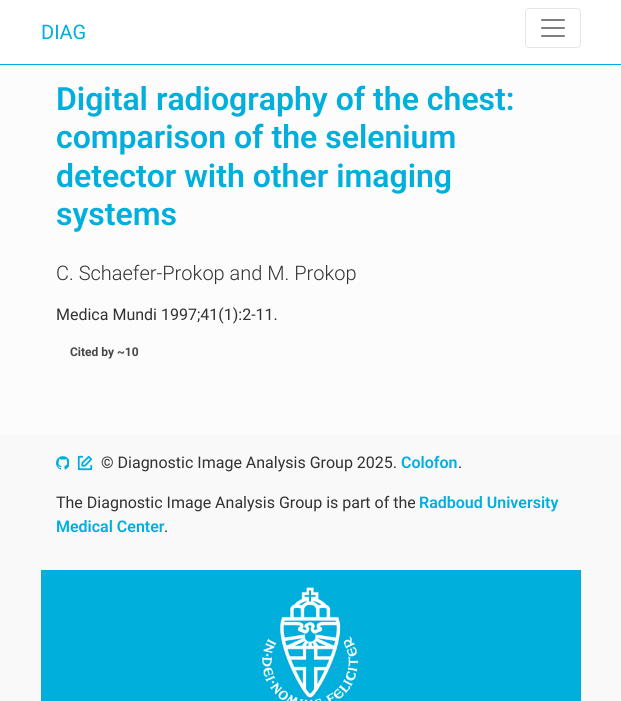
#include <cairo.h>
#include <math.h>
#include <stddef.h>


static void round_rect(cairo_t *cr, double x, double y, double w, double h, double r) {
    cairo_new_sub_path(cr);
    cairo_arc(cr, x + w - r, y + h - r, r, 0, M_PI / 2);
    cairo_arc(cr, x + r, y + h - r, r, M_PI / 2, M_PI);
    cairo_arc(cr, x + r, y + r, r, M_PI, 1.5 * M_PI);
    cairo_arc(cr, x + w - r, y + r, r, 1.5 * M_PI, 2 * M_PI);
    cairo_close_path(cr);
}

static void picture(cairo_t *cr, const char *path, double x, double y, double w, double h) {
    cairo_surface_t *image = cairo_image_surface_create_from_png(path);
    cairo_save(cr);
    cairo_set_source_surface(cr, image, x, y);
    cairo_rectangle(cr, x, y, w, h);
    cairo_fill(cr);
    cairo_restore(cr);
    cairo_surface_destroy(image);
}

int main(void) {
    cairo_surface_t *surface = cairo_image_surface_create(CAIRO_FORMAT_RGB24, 621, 701);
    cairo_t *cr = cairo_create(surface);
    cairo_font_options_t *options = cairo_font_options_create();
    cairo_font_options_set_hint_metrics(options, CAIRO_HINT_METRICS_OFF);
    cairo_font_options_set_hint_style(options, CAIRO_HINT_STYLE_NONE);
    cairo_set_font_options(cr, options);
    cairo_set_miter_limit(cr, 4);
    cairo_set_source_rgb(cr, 0.988, 0.988, 0.988);
    cairo_paint(cr);
    cairo_set_source_rgb(cr, 1, 1, 1);
    cairo_rectangle(cr, 0, 0, 621, 64);
    cairo_fill(cr);
    cairo_set_source_rgb(cr, 0, 0.686, 0.863);
    cairo_rectangle(cr, 0, 64, 621, 1);
    cairo_fill(cr);
    cairo_select_font_face(cr, "Roboto", CAIRO_FONT_SLANT_NORMAL, CAIRO_FONT_WEIGHT_NORMAL);
    cairo_set_font_size(cr, 20);
    cairo_move_to(cr, 41, 39);
    cairo_show_text(cr, "DIAG");
    round_rect(cr, 525.5, 8.5, 55, 39, 3.5);
    cairo_set_source_rgb(cr, 0.902, 0.902, 0.902);
    cairo_set_line_width(cr, 1);
    cairo_stroke(cr);
    picture(cr, "img1.png", 541, 19, 24, 18);
    cairo_select_font_face(cr, "Roboto SemiBold", CAIRO_FONT_SLANT_NORMAL, CAIRO_FONT_WEIGHT_NORMAL);
    cairo_set_font_size(cr, 32);
    cairo_set_source_rgb(cr, 0, 0.686, 0.863);
    cairo_move_to(cr, 56, 110);
    cairo_show_text(cr, "Digital radiography of the chest:");
    cairo_move_to(cr, 56, 148);
    cairo_show_text(cr, "comparison of the selenium");
    cairo_move_to(cr, 56, 187);
    cairo_show_text(cr, "detector with other imaging");
    cairo_move_to(cr, 56, 225);
    cairo_show_text(cr, "systems");
    cairo_select_font_face(cr, "Roboto Light", CAIRO_FONT_SLANT_NORMAL, CAIRO_FONT_WEIGHT_NORMAL);
    cairo_set_font_size(cr, 20);
    cairo_set_source_rgb(cr, 0.196, 0.196, 0.196);
    cairo_move_to(cr, 56, 280);
    cairo_show_text(cr, "C. Schaefer-Prokop and M. Prokop");
    cairo_select_font_face(cr, "Roboto", CAIRO_FONT_SLANT_NORMAL, CAIRO_FONT_WEIGHT_NORMAL);
    cairo_set_font_size(cr, 16);
    cairo_move_to(cr, 56, 320);
    cairo_show_text(cr, "Medica Mundi 1997;41(1):2-11.");
    cairo_select_font_face(cr, "Roboto", CAIRO_FONT_SLANT_NORMAL, CAIRO_FONT_WEIGHT_BOLD);
    cairo_set_font_size(cr, 12);
    cairo_set_source_rgb(cr, 0.275, 0.275, 0.275);
    cairo_move_to(cr, 70, 356);
    cairo_show_text(cr, "Cited by ~10");
    cairo_set_source_rgb(cr, 0.973, 0.976, 0.98);
    cairo_rectangle(cr, 0, 435, 621, 266);
    cairo_fill(cr);
    picture(cr, "img2.png", 56, 456, 13, 14);
    picture(cr, "img3.png", 77, 455, 16, 16);
    cairo_select_font_face(cr, "Roboto", CAIRO_FONT_SLANT_NORMAL, CAIRO_FONT_WEIGHT_NORMAL);
    cairo_set_font_size(cr, 16);
    cairo_set_source_rgb(cr, 0.196, 0.196, 0.196);
    cairo_move_to(cr, 101, 468);
    cairo_show_text(cr, "© Diagnostic Image Analysis Group 2025.");
    cairo_select_font_face(cr, "Roboto SemiBold", CAIRO_FONT_SLANT_NORMAL, CAIRO_FONT_WEIGHT_NORMAL);
    cairo_set_source_rgb(cr, 0, 0.686, 0.863);
    cairo_move_to(cr, 401, 468);
    cairo_show_text(cr, "Colofon");
    cairo_select_font_face(cr, "Roboto", CAIRO_FONT_SLANT_NORMAL, CAIRO_FONT_WEIGHT_NORMAL);
    cairo_set_source_rgb(cr, 0.196, 0.196, 0.196);
    cairo_move_to(cr, 458, 468);
    cairo_show_text(cr, ".");
    cairo_move_to(cr, 56, 508);
    cairo_show_text(cr, "The Diagnostic Image Analysis Group is part of the");
    cairo_select_font_face(cr, "Roboto SemiBold", CAIRO_FONT_SLANT_NORMAL, CAIRO_FONT_WEIGHT_NORMAL);
    cairo_set_source_rgb(cr, 0, 0.686, 0.863);
    cairo_move_to(cr, 419, 508);
    cairo_show_text(cr, "Radboud University");
    cairo_move_to(cr, 56, 532);
    cairo_show_text(cr, "Medical Center");
    cairo_select_font_face(cr, "Roboto", CAIRO_FONT_SLANT_NORMAL, CAIRO_FONT_WEIGHT_NORMAL);
    cairo_set_source_rgb(cr, 0.196, 0.196, 0.196);
    cairo_move_to(cr, 164, 532);
    cairo_show_text(cr, ".");
    cairo_set_source_rgb(cr, 0, 0.686, 0.863);
    cairo_rectangle(cr, 41, 570, 540, 131);
    cairo_fill(cr);
    picture(cr, "img4.png", 262, 587, 97, 114);
    cairo_surface_write_to_png(surface, "page.png");
    cairo_font_options_destroy(options);
    cairo_destroy(cr);
    cairo_surface_destroy(surface);
    return 0;
}
